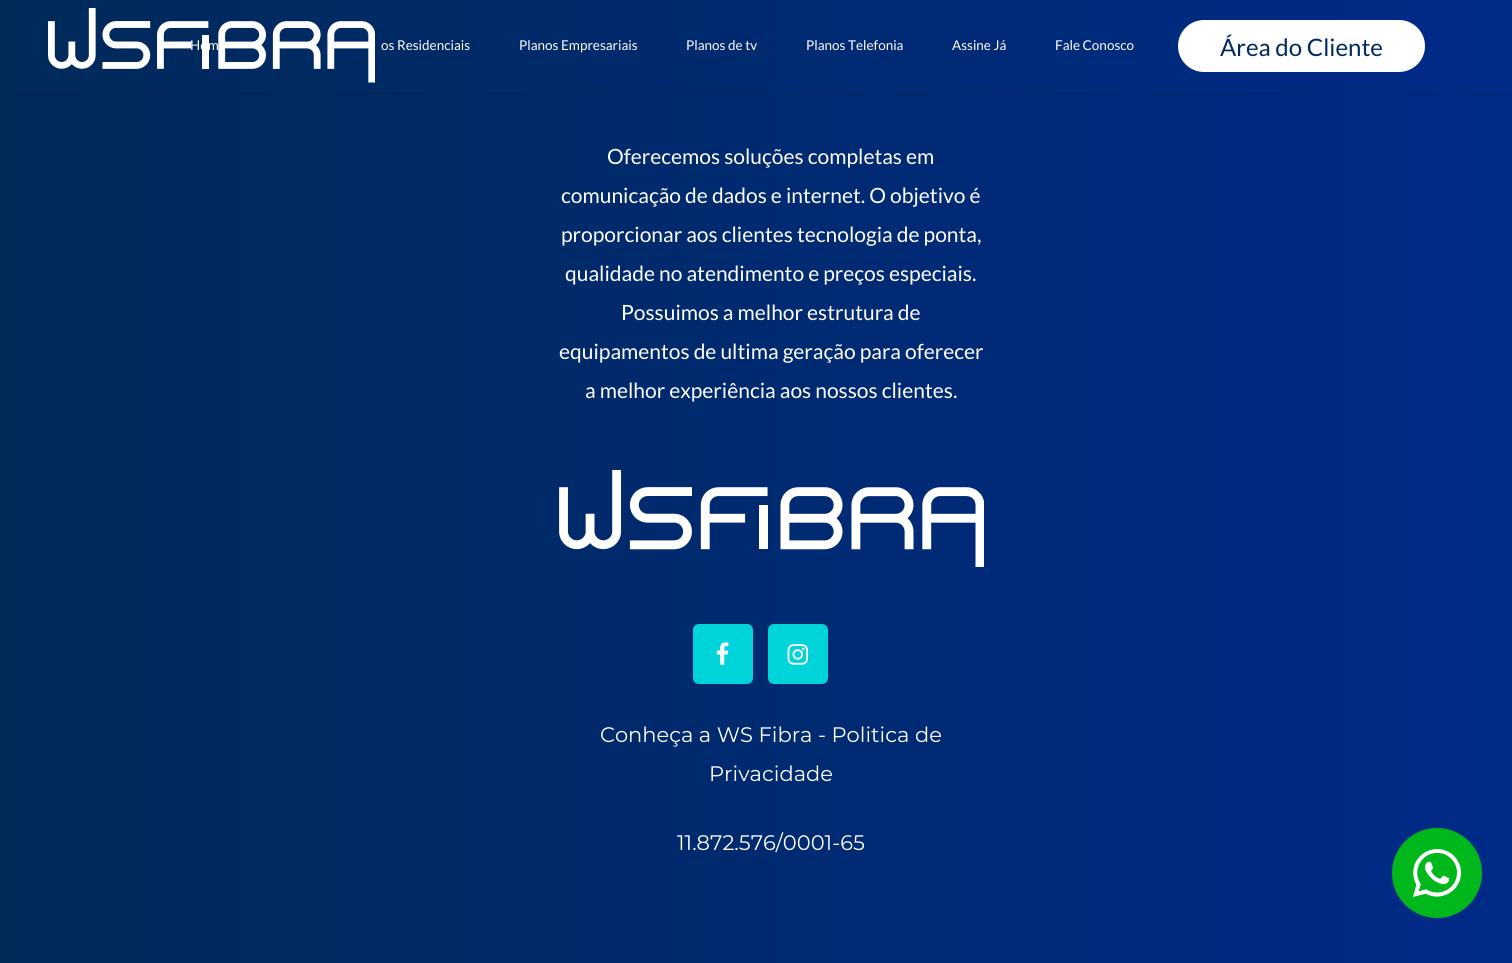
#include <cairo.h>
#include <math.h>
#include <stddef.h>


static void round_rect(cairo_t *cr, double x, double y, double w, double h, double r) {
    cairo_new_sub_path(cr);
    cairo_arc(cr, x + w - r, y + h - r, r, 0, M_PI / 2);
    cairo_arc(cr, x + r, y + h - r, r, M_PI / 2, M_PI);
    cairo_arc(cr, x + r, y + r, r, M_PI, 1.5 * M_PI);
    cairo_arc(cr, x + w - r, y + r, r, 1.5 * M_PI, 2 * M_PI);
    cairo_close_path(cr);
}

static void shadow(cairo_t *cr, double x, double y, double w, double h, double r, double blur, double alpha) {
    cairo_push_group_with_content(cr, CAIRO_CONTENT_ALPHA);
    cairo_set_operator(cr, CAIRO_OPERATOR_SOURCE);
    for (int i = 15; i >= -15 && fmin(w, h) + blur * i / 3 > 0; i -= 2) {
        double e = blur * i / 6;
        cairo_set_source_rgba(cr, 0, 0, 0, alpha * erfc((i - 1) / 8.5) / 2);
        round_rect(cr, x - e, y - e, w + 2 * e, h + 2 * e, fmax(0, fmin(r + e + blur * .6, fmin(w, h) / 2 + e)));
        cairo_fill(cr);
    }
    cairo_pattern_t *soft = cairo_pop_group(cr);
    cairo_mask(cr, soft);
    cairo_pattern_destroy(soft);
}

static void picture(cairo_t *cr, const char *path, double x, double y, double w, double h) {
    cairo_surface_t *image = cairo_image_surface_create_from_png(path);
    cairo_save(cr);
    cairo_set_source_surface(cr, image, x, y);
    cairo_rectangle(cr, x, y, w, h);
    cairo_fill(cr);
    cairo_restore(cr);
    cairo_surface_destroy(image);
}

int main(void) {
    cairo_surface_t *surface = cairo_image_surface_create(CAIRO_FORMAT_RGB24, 1512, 963);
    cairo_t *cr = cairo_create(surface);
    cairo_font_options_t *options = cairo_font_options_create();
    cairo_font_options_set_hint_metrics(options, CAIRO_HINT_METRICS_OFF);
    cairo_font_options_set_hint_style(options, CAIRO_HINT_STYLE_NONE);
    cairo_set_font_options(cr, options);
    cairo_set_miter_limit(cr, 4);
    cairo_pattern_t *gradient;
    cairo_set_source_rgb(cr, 1, 1, 1);
    cairo_paint(cr);
    gradient = cairo_pattern_create_linear(0, 479, 1512, 479);
    cairo_pattern_add_color_stop_rgba(gradient, 0, 0, 0.165, 0.345, 1);
    cairo_pattern_add_color_stop_rgba(gradient, 1, 0, 0.165, 0.533, 1);
    cairo_set_source(cr, gradient);
    cairo_pattern_destroy(gradient);
    cairo_rectangle(cr, 0, 92, 1512, 871);
    cairo_fill(cr);
    cairo_set_source_rgb(cr, 0, 0, 0);
    shadow(cr, 0, 2, 1512, 91, 0, 2, 0.11);
    gradient = cairo_pattern_create_linear(0, 46, 1512, 46);
    cairo_pattern_add_color_stop_rgba(gradient, 0, 0, 0.165, 0.345, 1);
    cairo_pattern_add_color_stop_rgba(gradient, 1, 0, 0.165, 0.533, 1);
    cairo_set_source(cr, gradient);
    cairo_pattern_destroy(gradient);
    cairo_rectangle(cr, 0, 0, 1512, 92);
    cairo_fill(cr);
    picture(cr, "img1.png", 48, 8, 327, 75);
    cairo_select_font_face(cr, "Lato", CAIRO_FONT_SLANT_NORMAL, CAIRO_FONT_WEIGHT_NORMAL);
    cairo_set_font_size(cr, 13.5);
    cairo_set_source_rgb(cr, 1, 1, 1);
    cairo_move_to(cr, 190, 50);
    cairo_show_text(cr, "Hom");
    cairo_move_to(cr, 381, 50);
    cairo_show_text(cr, "os Residenciais");
    cairo_move_to(cr, 519, 50);
    cairo_show_text(cr, "Planos Empresariais");
    cairo_move_to(cr, 686, 50);
    cairo_show_text(cr, "Planos de tv");
    cairo_move_to(cr, 806, 50);
    cairo_show_text(cr, "Planos Telefonia");
    cairo_move_to(cr, 952, 50);
    cairo_show_text(cr, "Assine Já");
    cairo_move_to(cr, 1055, 50);
    cairo_show_text(cr, "Fale Conosco");
    round_rect(cr, 1178, 20, 247, 52, 26);
    cairo_fill(cr);
    cairo_set_font_size(cr, 24);
    cairo_set_source_rgb(cr, 0, 0.165, 0.384);
    cairo_move_to(cr, 1220, 56);
    cairo_show_text(cr, "Área do Cliente");
    cairo_set_font_size(cr, 21);
    cairo_set_source_rgb(cr, 1, 1, 1);
    cairo_move_to(cr, 607, 164);
    cairo_show_text(cr, "Oferecemos soluções completas em");
    cairo_move_to(cr, 561, 203);
    cairo_show_text(cr, "comunicação de dados e internet. O objetivo é");
    cairo_move_to(cr, 561, 242);
    cairo_show_text(cr, "proporcionar aos clientes tecnologia de ponta,");
    cairo_move_to(cr, 565, 281);
    cairo_show_text(cr, "qualidade no atendimento e preços especiais.");
    cairo_move_to(cr, 621, 320);
    cairo_show_text(cr, "Possuimos a melhor estrutura de");
    cairo_move_to(cr, 559, 359);
    cairo_show_text(cr, "equipamentos de ultima geração para oferecer");
    cairo_move_to(cr, 585, 398);
    cairo_show_text(cr, "a melhor experiência aos nossos clientes.");
    picture(cr, "img2.png", 559, 470, 425, 97);
    cairo_set_source_rgb(cr, 0, 0.831, 0.859);
    round_rect(cr, 693, 624, 60, 60, 6);
    cairo_fill(cr);
    picture(cr, "img3.png", 716, 642, 13, 23);
    round_rect(cr, 768, 624, 60, 60, 6);
    cairo_fill(cr);
    picture(cr, "img4.png", 787, 644, 22, 21);
    cairo_select_font_face(cr, "Montserrat", CAIRO_FONT_SLANT_NORMAL, CAIRO_FONT_WEIGHT_NORMAL);
    cairo_set_source_rgb(cr, 1, 1, 1);
    cairo_move_to(cr, 600, 742);
    cairo_show_text(cr, "Conheça a WS Fibra - Politica de");
    cairo_move_to(cr, 709, 781);
    cairo_show_text(cr, "Privacidade");
    cairo_move_to(cr, 677, 850);
    cairo_show_text(cr, "11.872.576/0001-65");
    cairo_set_source_rgb(cr, 0, 0.718, 0.11);
    cairo_new_path(cr);
    cairo_arc(cr, 1437, 873, 45, 0, 2 * M_PI);
    cairo_fill(cr);
    picture(cr, "img5.png", 1413, 849, 48, 48);
    cairo_surface_write_to_png(surface, "page.png");
    cairo_font_options_destroy(options);
    cairo_destroy(cr);
    cairo_surface_destroy(surface);
    return 0;
}
